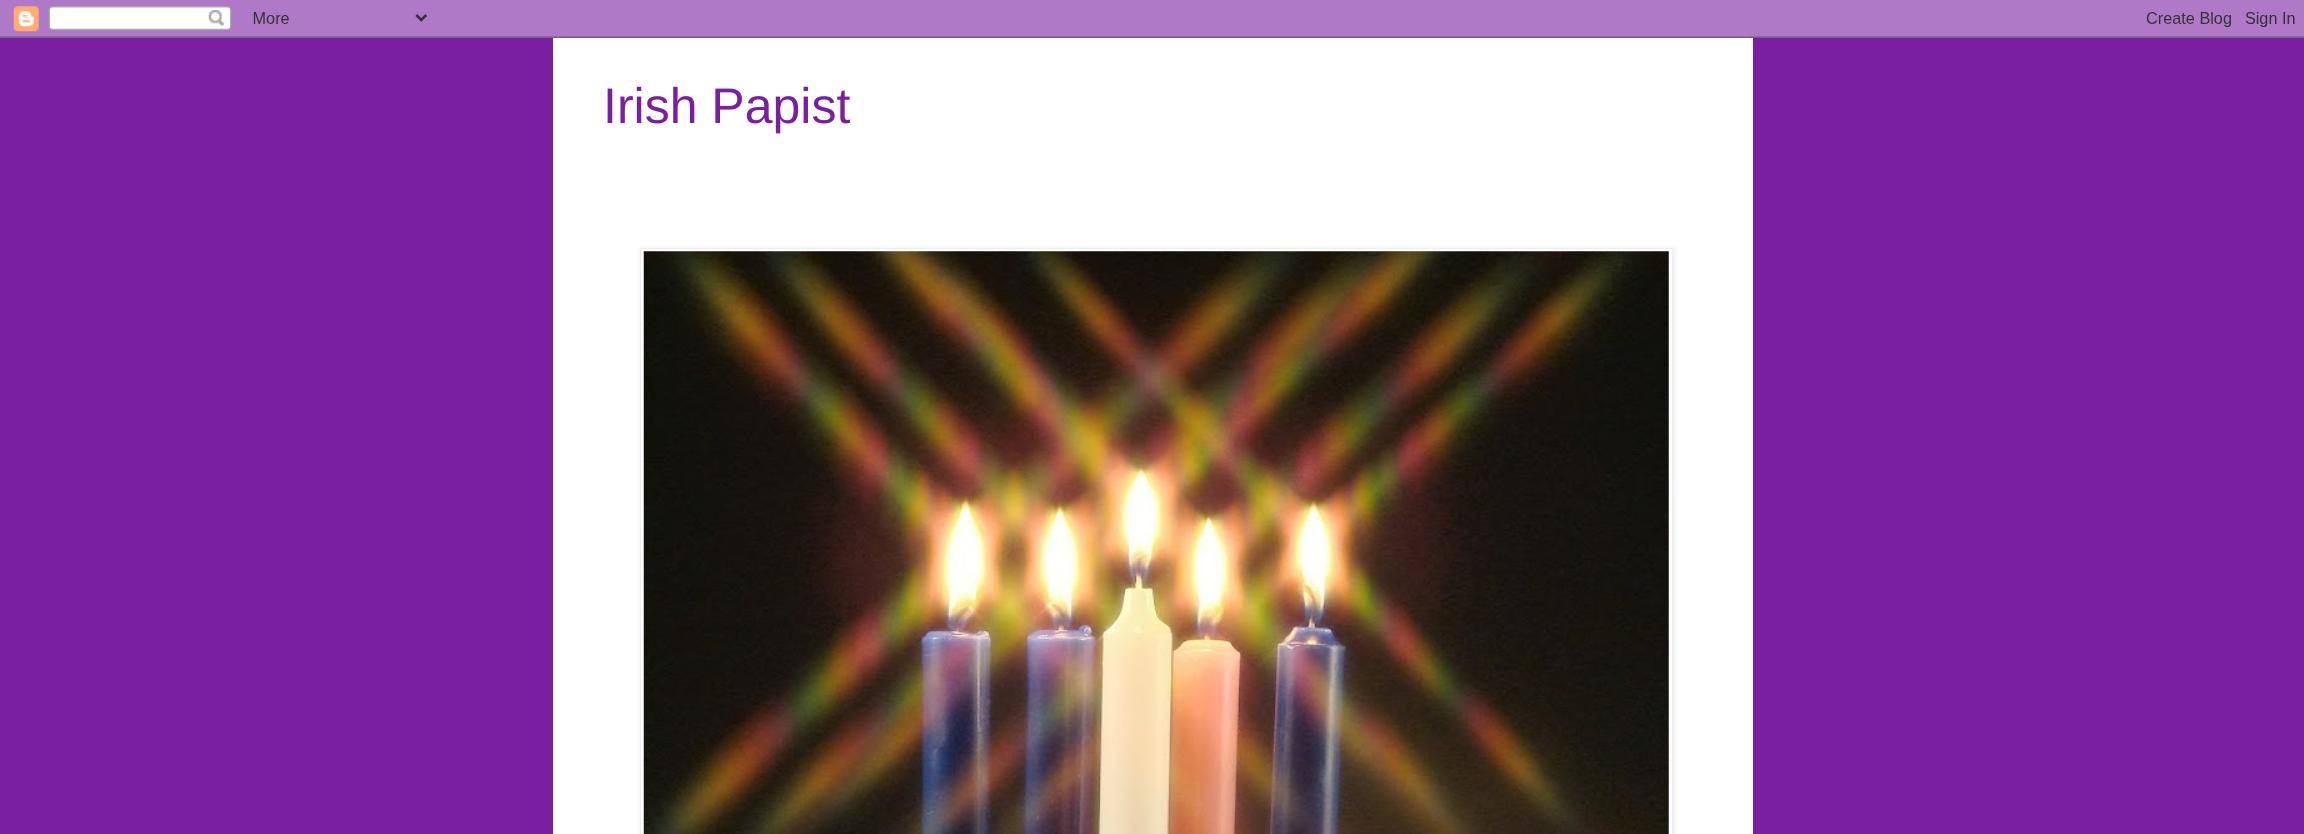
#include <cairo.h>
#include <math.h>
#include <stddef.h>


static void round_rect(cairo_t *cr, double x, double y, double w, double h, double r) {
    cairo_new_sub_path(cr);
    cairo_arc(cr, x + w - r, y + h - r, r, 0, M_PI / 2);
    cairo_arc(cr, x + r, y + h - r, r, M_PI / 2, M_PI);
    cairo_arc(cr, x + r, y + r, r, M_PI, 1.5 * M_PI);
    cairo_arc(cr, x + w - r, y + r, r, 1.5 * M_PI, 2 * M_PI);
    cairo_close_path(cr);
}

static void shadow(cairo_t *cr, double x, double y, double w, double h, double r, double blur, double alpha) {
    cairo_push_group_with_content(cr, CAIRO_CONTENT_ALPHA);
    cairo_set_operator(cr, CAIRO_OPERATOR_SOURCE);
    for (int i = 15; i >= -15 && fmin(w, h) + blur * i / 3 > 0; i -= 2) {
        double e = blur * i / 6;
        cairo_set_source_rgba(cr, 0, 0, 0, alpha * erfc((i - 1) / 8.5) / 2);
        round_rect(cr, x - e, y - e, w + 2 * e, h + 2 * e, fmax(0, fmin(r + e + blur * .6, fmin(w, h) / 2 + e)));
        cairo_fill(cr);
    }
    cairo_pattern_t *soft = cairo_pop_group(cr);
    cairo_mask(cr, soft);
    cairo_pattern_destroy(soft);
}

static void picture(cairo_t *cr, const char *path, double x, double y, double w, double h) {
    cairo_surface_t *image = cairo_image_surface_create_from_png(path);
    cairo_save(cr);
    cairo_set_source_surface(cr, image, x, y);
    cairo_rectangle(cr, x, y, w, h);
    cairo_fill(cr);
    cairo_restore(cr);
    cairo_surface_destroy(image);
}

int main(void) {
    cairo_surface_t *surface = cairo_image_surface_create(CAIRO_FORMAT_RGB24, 2304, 834);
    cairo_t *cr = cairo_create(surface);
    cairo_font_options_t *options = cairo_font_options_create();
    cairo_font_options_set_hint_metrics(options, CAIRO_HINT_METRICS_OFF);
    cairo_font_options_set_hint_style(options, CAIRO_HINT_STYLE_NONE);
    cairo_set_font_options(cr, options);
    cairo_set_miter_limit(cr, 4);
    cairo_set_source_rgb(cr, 0.482, 0.122, 0.635);
    cairo_paint(cr);
    picture(cr, "img1.png", 0, 0, 2304, 38);
    cairo_set_source_rgb(cr, 1, 1, 1);
    cairo_rectangle(cr, 553, 38, 1200, 796);
    cairo_fill(cr);
    cairo_select_font_face(cr, "Liberation Sans", CAIRO_FONT_SLANT_NORMAL, CAIRO_FONT_WEIGHT_NORMAL);
    cairo_set_font_size(cr, 50);
    cairo_set_source_rgb(cr, 0.482, 0.122, 0.635);
    cairo_move_to(cr, 603, 123);
    cairo_show_text(cr, "Irish Papist");
    cairo_set_source_rgb(cr, 0, 0, 0);
    shadow(cr, 641, 249, 1033, 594, 0, 3, 0.1);
    cairo_set_source_rgb(cr, 1, 1, 1);
    cairo_rectangle(cr, 640.5, 248.5, 1032, 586);
    cairo_fill_preserve(cr);
    cairo_set_source_rgb(cr, 0.933, 0.933, 0.933);
    cairo_set_line_width(cr, 1);
    cairo_stroke(cr);
    picture(cr, "img2.png", 643, 251, 1026, 583);
    cairo_surface_write_to_png(surface, "page.png");
    cairo_font_options_destroy(options);
    cairo_destroy(cr);
    cairo_surface_destroy(surface);
    return 0;
}
